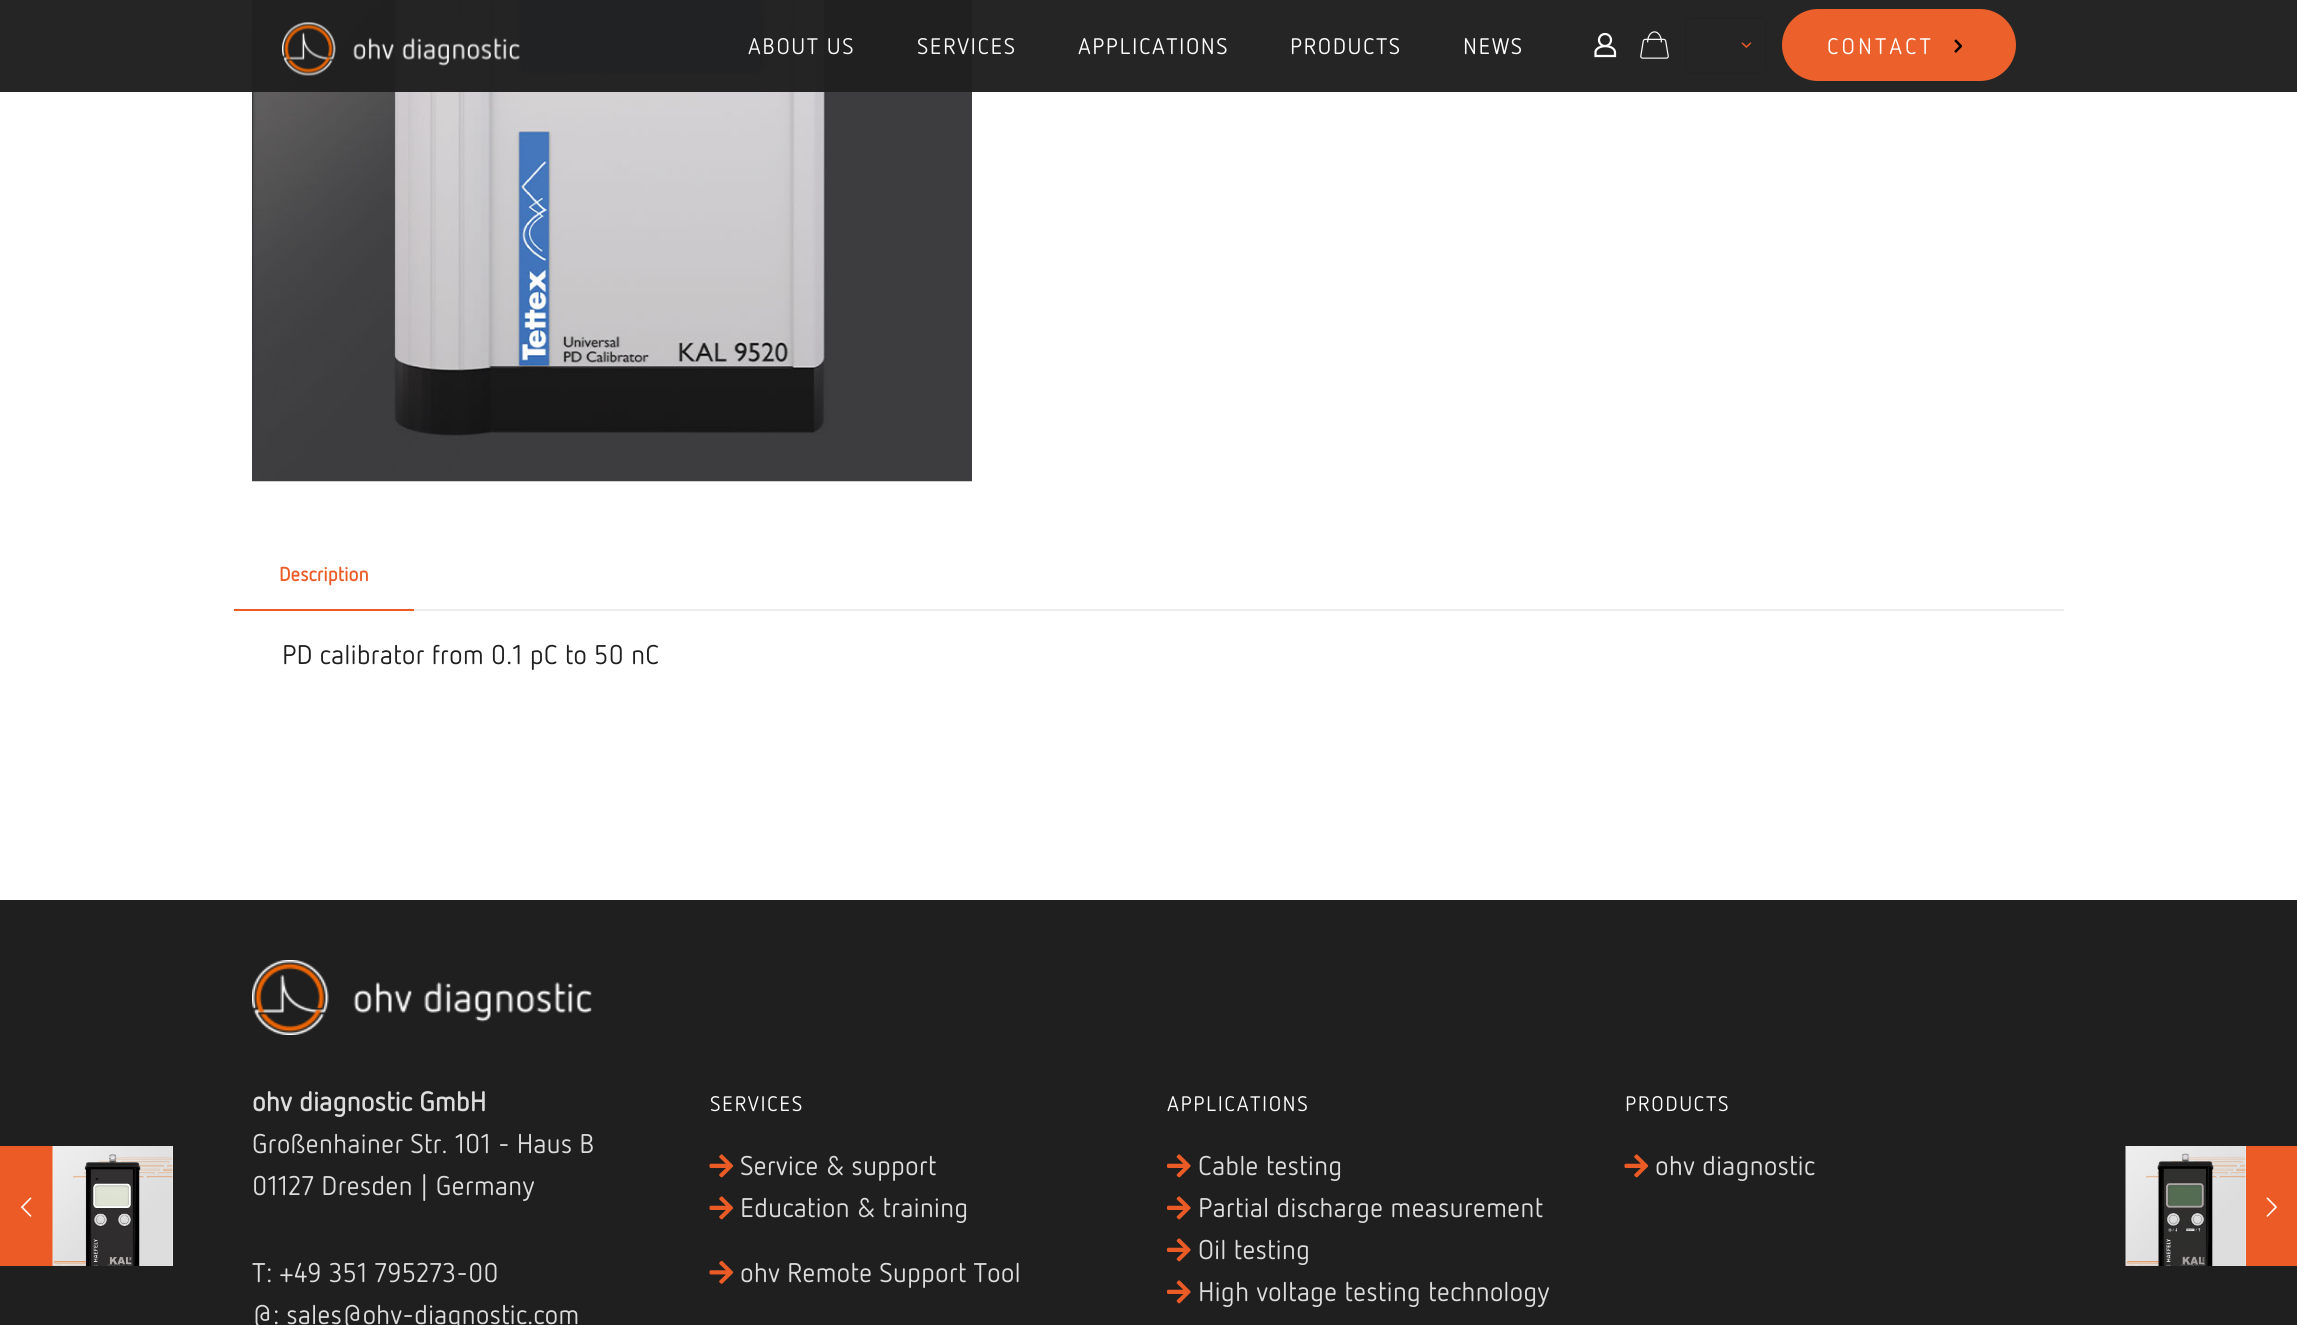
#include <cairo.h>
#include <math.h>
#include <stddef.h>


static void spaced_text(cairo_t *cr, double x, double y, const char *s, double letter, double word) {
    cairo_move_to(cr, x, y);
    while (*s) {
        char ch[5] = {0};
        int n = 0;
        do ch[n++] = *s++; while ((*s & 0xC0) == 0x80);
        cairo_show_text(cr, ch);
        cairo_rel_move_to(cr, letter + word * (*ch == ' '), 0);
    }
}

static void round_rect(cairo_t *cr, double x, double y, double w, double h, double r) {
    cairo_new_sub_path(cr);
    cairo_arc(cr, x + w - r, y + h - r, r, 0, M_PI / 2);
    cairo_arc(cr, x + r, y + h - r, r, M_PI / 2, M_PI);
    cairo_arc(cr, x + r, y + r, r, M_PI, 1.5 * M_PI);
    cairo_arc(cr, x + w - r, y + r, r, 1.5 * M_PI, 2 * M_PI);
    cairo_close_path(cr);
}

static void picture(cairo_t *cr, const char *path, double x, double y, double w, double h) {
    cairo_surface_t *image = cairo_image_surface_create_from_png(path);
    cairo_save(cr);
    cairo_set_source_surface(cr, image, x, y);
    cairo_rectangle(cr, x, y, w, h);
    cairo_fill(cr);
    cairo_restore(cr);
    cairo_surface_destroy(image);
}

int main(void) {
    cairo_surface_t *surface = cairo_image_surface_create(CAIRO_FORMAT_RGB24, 2297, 1325);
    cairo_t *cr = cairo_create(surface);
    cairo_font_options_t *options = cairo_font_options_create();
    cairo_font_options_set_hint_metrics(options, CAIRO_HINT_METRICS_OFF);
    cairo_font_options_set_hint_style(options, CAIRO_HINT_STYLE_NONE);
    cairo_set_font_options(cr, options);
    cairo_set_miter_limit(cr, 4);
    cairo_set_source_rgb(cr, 1, 1, 1);
    cairo_paint(cr);
    cairo_set_source_rgb(cr, 0.122, 0.122, 0.122);
    cairo_rectangle(cr, 0, 900, 2297, 425);
    cairo_fill(cr);
    cairo_set_source_rgb(cr, 0.922, 0.357, 0.145);
    cairo_rectangle(cr, 0, 1146, 53, 120);
    cairo_fill(cr);
    picture(cr, "img1.png", 21, 1197, 11, 20);
    cairo_set_source_rgb(cr, 0.933, 0.933, 0.933);
    cairo_rectangle(cr, 172, 1146, 1, 120);
    cairo_fill(cr);
    picture(cr, "img2.png", 52, 1146, 121, 120);
    picture(cr, "img7.png", 252, 0, 720, 482);
    cairo_set_source_rgba(cr, 0.122, 0.122, 0.122, 0.97);
    cairo_rectangle(cr, 0, 0, 2297, 92);
    cairo_fill(cr);
    picture(cr, "img3.png", 282, 22, 238, 54);
    cairo_select_font_face(cr, "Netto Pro", CAIRO_FONT_SLANT_NORMAL, CAIRO_FONT_WEIGHT_NORMAL);
    cairo_set_font_size(cr, 22.5);
    cairo_set_source_rgb(cr, 0.973, 0.973, 0.973);
    spaced_text(cr, 748, 54, "ABOUT US", 1.5, 0);
    spaced_text(cr, 917, 54, "SERVICES", 1.5, 0);
    cairo_set_source_rgb(cr, 1, 1, 1);
    spaced_text(cr, 1078, 54, "APPLICATIONS", 1.5, 0);
    spaced_text(cr, 1290, 54, "PRODUCTS", 1.5, 0);
    spaced_text(cr, 1463, 54, "NEWS", 1.5, 0);
    cairo_new_path(cr);
    cairo_arc(cr, 1605, 40, 6, 0, 2 * M_PI);
    cairo_set_line_width(cr, 2.2);
    cairo_stroke(cr);
    cairo_new_path(cr);
    cairo_move_to(cr, 1615, 52.5);
    cairo_line_to(cr, 1615, 56);
    cairo_line_to(cr, 1595.5, 56);
    cairo_line_to(cr, 1595.5, 51.5);
    cairo_curve_to(cr, 1597.5, 44, 1615, 44.5, 1615, 52.5);
    cairo_close_path(cr);
    cairo_stroke(cr);
    picture(cr, "img4.png", 1640, 31, 29, 28);
    round_rect(cr, 1686, 18, 80, 55, 7);
    cairo_set_source_rgb(cr, 0.137, 0.137, 0.137);
    cairo_set_line_width(cr, 2);
    cairo_stroke(cr);
    picture(cr, "img5.png", 1741, 42, 11, 6);
    cairo_set_source_rgb(cr, 0.925, 0.376, 0.173);
    round_rect(cr, 1782, 9, 234, 72, 36);
    cairo_fill(cr);
    cairo_set_source_rgb(cr, 1, 1, 1);
    spaced_text(cr, 1827, 54, "CONTACT", 3, 0);
    picture(cr, "img6.png", 1954, 39, 9, 14);
    cairo_set_source_rgb(cr, 0.922, 0.922, 0.922);
    cairo_rectangle(cr, 414, 609, 1650, 2);
    cairo_fill(cr);
    cairo_select_font_face(cr, "Netto Pro", CAIRO_FONT_SLANT_NORMAL, CAIRO_FONT_WEIGHT_BOLD);
    cairo_set_font_size(cr, 19.5);
    cairo_set_source_rgb(cr, 0.922, 0.357, 0.145);
    cairo_move_to(cr, 279, 581);
    cairo_show_text(cr, "Description");
    cairo_rectangle(cr, 234, 609, 180, 2);
    cairo_fill(cr);
    cairo_select_font_face(cr, "Netto Pro", CAIRO_FONT_SLANT_NORMAL, CAIRO_FONT_WEIGHT_NORMAL);
    cairo_set_font_size(cr, 27);
    cairo_set_source_rgb(cr, 0.122, 0.122, 0.122);
    cairo_move_to(cr, 282, 664);
    cairo_show_text(cr, "PD calibrator from 0.1 pC to 50 nC");
    picture(cr, "img8.png", 252, 960, 340, 75);
    cairo_select_font_face(cr, "Netto Pro", CAIRO_FONT_SLANT_NORMAL, CAIRO_FONT_WEIGHT_BOLD);
    cairo_set_source_rgb(cr, 0.867, 0.867, 0.867);
    cairo_move_to(cr, 252, 1111);
    cairo_show_text(cr, "ohv diagnostic GmbH");
    cairo_select_font_face(cr, "Netto Pro", CAIRO_FONT_SLANT_NORMAL, CAIRO_FONT_WEIGHT_NORMAL);
    cairo_move_to(cr, 252, 1153);
    cairo_show_text(cr, "Großenhainer Str. 101 - Haus B");
    cairo_move_to(cr, 252, 1195);
    cairo_show_text(cr, "01127 Dresden | Germany");
    cairo_move_to(cr, 252, 1282);
    cairo_show_text(cr, "T: +49 351 795273-00");
    cairo_move_to(cr, 252, 1324);
    cairo_show_text(cr, "@: sales@ohv-diagnostic.com");
    cairo_set_font_size(cr, 21);
    cairo_set_source_rgb(cr, 1, 1, 1);
    spaced_text(cr, 710, 1111, "SERVICES", 1.5, 0);
    picture(cr, "img9.png", 709, 1154, 25, 24);
    cairo_set_font_size(cr, 27);
    cairo_set_source_rgb(cr, 0.867, 0.867, 0.867);
    cairo_move_to(cr, 740, 1175);
    cairo_show_text(cr, "Service & support");
    picture(cr, "img9.png", 709, 1196, 25, 24);
    cairo_move_to(cr, 740, 1217);
    cairo_show_text(cr, "Education & training");
    picture(cr, "img10.png", 709, 1260, 25, 24);
    cairo_move_to(cr, 740, 1282);
    cairo_show_text(cr, "ohv Remote Support Tool");
    cairo_set_font_size(cr, 21);
    cairo_set_source_rgb(cr, 1, 1, 1);
    spaced_text(cr, 1167, 1111, "APPLICATIONS", 1.5, 0);
    picture(cr, "img11.png", 1167, 1154, 24, 24);
    cairo_set_font_size(cr, 27);
    cairo_set_source_rgb(cr, 0.867, 0.867, 0.867);
    cairo_move_to(cr, 1198, 1175);
    cairo_show_text(cr, "Cable testing");
    picture(cr, "img11.png", 1167, 1196, 24, 24);
    cairo_move_to(cr, 1198, 1217);
    cairo_show_text(cr, "Partial discharge measurement");
    picture(cr, "img11.png", 1167, 1238, 24, 24);
    cairo_move_to(cr, 1198, 1259);
    cairo_show_text(cr, "Oil testing");
    picture(cr, "img11.png", 1167, 1280, 24, 24);
    cairo_move_to(cr, 1198, 1301);
    cairo_show_text(cr, "High voltage testing technology");
    cairo_set_font_size(cr, 21);
    cairo_set_source_rgb(cr, 1, 1, 1);
    spaced_text(cr, 1625, 1111, "PRODUCTS", 1.5, 0);
    picture(cr, "img9.png", 1624, 1154, 25, 24);
    cairo_set_font_size(cr, 27);
    cairo_set_source_rgb(cr, 0.867, 0.867, 0.867);
    cairo_move_to(cr, 1655, 1175);
    cairo_show_text(cr, "ohv diagnostic");
    cairo_set_source_rgb(cr, 0.933, 0.933, 0.933);
    cairo_rectangle(cr, 2245, 1146, 1, 120);
    cairo_fill(cr);
    picture(cr, "img12.png", 2125, 1146, 121, 120);
    cairo_set_source_rgb(cr, 0.922, 0.357, 0.145);
    cairo_rectangle(cr, 2246, 1146, 51, 120);
    cairo_fill(cr);
    picture(cr, "img13.png", 2266, 1197, 11, 20);
    cairo_surface_write_to_png(surface, "page.png");
    cairo_font_options_destroy(options);
    cairo_destroy(cr);
    cairo_surface_destroy(surface);
    return 0;
}
